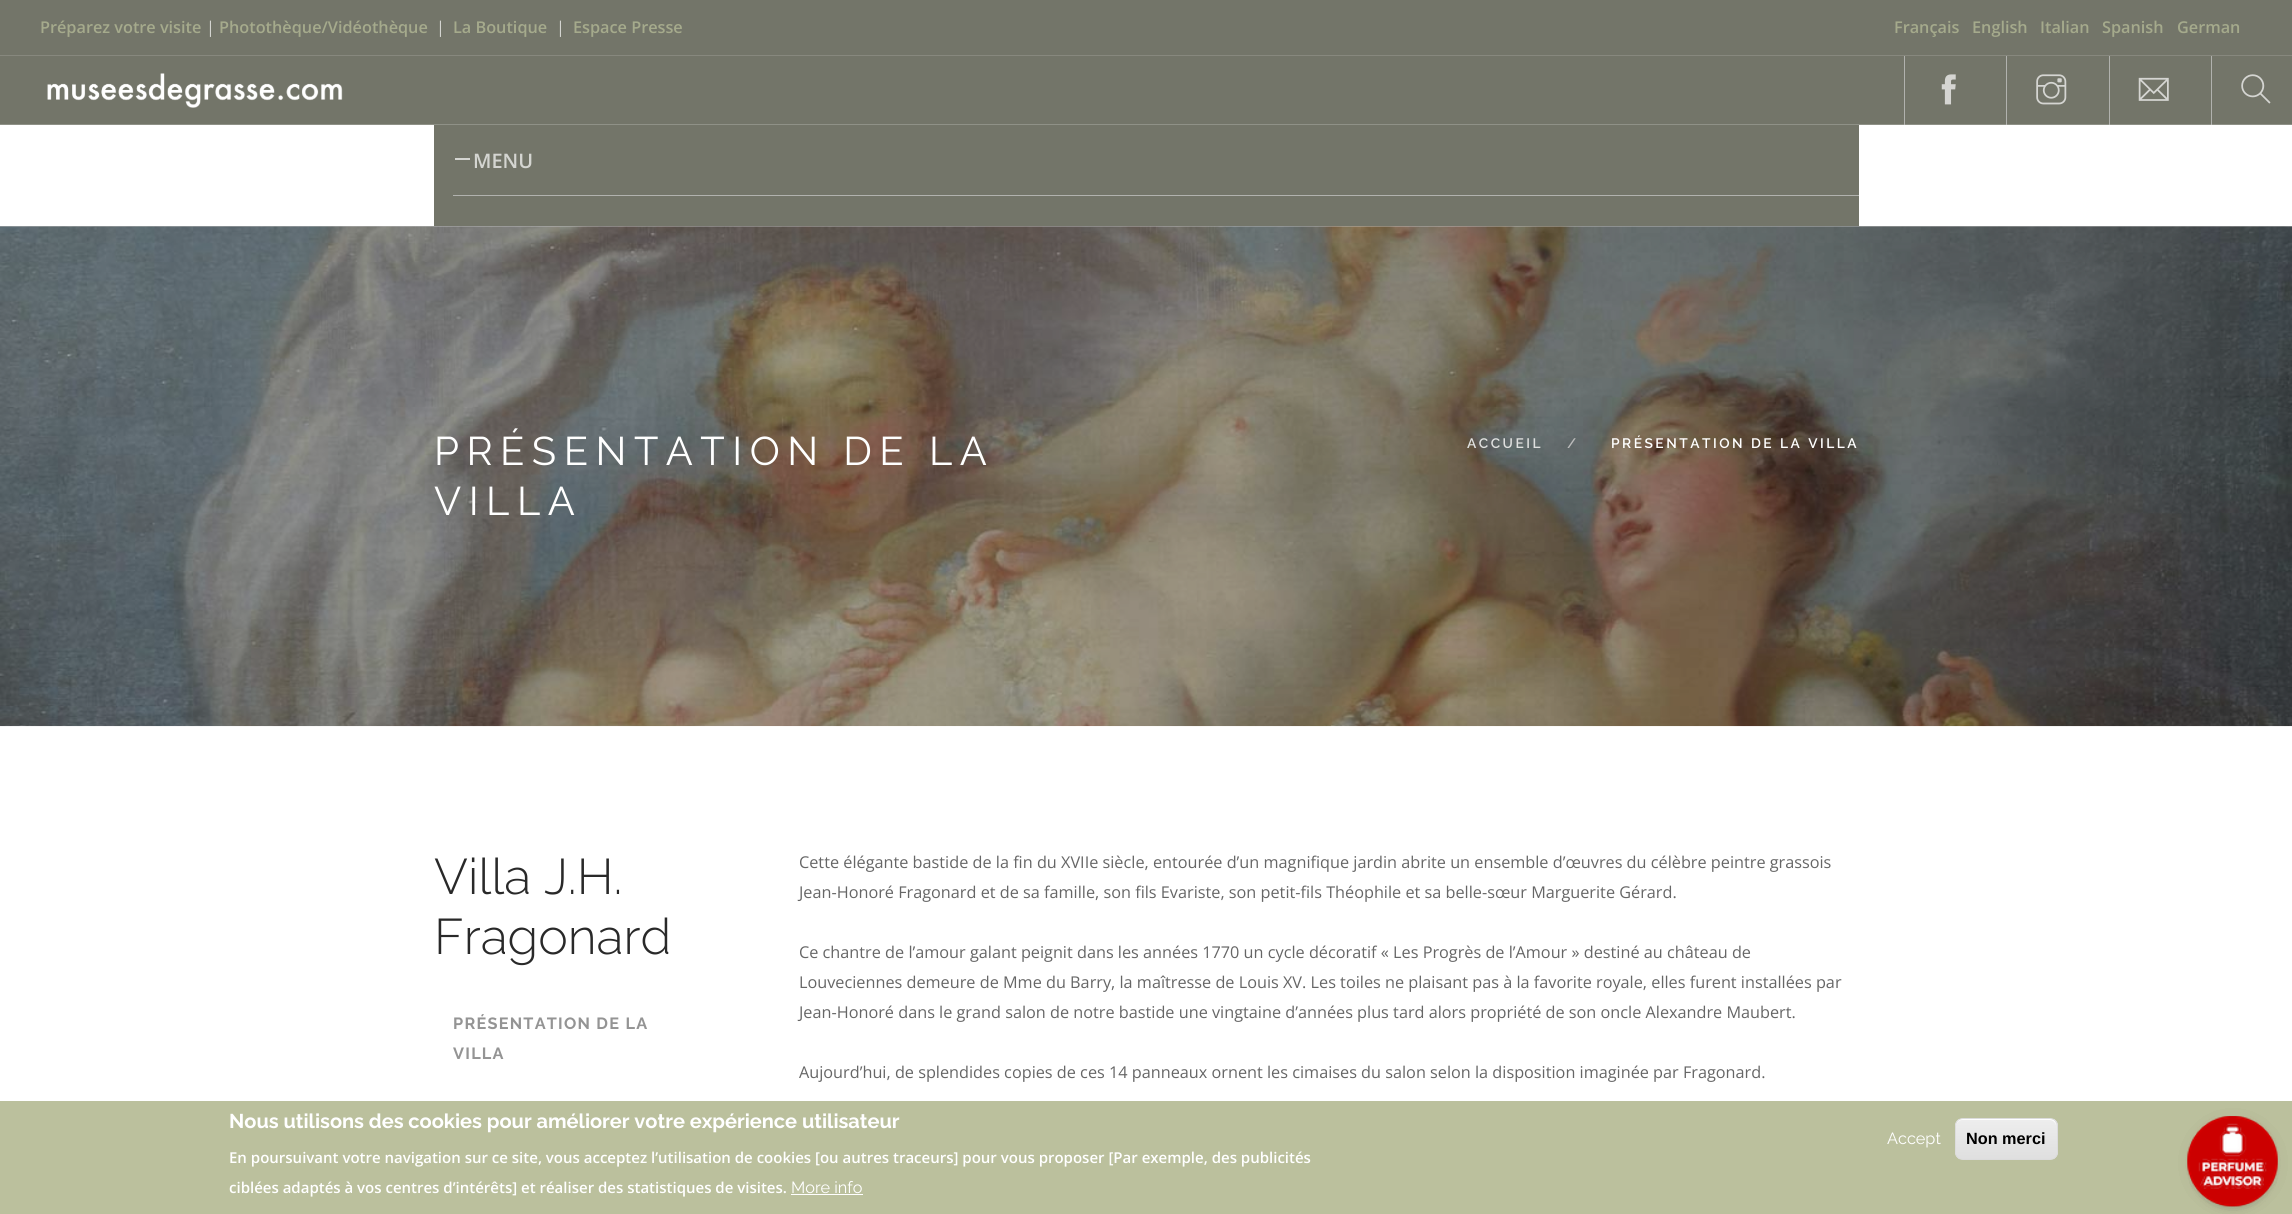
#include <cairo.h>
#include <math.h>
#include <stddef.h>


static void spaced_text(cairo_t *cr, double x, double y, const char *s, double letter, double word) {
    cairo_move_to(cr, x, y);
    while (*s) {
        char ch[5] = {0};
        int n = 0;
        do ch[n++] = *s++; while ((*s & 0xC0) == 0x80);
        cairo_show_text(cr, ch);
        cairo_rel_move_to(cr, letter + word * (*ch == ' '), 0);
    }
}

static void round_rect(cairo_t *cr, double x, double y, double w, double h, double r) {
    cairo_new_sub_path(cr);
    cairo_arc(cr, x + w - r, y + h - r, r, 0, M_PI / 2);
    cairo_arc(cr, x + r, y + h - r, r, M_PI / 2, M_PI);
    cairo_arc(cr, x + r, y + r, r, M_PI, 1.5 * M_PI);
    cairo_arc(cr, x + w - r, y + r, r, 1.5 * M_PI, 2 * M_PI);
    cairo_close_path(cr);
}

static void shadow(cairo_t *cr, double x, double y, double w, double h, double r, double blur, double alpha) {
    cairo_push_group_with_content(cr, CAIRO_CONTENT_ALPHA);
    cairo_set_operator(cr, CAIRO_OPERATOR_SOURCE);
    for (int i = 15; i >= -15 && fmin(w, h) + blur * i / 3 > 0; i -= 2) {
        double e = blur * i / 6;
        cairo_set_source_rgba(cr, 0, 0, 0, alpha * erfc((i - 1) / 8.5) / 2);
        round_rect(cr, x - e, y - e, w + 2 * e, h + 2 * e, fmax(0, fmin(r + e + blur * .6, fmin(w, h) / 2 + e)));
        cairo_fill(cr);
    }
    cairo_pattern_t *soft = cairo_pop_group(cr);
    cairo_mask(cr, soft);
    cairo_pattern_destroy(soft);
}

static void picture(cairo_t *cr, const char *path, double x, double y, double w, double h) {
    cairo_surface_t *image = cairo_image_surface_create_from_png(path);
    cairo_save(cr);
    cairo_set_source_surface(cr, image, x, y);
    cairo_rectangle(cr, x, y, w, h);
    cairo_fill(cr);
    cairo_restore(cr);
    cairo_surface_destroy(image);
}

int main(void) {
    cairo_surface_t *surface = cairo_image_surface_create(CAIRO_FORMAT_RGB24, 2292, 1214);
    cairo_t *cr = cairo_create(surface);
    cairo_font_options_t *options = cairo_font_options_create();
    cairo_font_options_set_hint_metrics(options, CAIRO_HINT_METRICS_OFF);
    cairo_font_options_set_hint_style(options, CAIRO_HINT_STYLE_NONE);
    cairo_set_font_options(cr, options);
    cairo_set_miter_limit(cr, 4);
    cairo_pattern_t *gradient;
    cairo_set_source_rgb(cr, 1, 1, 1);
    cairo_paint(cr);
    cairo_set_source_rgb(cr, 0.749, 0.749, 0.749);
    cairo_rectangle(cr, 0, 226, 2292, 1);
    cairo_fill(cr);
    cairo_set_source_rgb(cr, 0.451, 0.459, 0.412);
    cairo_rectangle(cr, 0, 0, 2292, 124);
    cairo_fill(cr);
    cairo_set_source_rgb(cr, 0.694, 0.698, 0.682);
    cairo_rectangle(cr, 2211, 56, 1, 69);
    cairo_fill(cr);
    cairo_rectangle(cr, 2109, 56, 1, 69);
    cairo_fill(cr);
    cairo_rectangle(cr, 2006, 56, 1, 69);
    cairo_fill(cr);
    cairo_rectangle(cr, 1904, 56, 1, 69);
    cairo_fill(cr);
    cairo_set_source_rgb(cr, 0.529, 0.533, 0.494);
    cairo_rectangle(cr, 0, 55, 2292, 1);
    cairo_fill(cr);
    cairo_select_font_face(cr, "Open Sans SemiBold", CAIRO_FONT_SLANT_NORMAL, CAIRO_FONT_WEIGHT_NORMAL);
    cairo_set_font_size(cr, 16.25);
    cairo_set_source_rgb(cr, 0.647, 0.667, 0.549);
    cairo_move_to(cr, 40, 33);
    cairo_show_text(cr, "Préparez votre visite");
    cairo_select_font_face(cr, "Open Sans", CAIRO_FONT_SLANT_NORMAL, CAIRO_FONT_WEIGHT_NORMAL);
    cairo_set_source_rgb(cr, 0.831, 0.835, 0.82);
    cairo_move_to(cr, 206, 33);
    cairo_show_text(cr, "|");
    cairo_select_font_face(cr, "Open Sans SemiBold", CAIRO_FONT_SLANT_NORMAL, CAIRO_FONT_WEIGHT_NORMAL);
    cairo_set_source_rgb(cr, 0.647, 0.667, 0.549);
    cairo_move_to(cr, 219, 33);
    cairo_show_text(cr, "Photothèque/Vidéothèque");
    cairo_select_font_face(cr, "Open Sans", CAIRO_FONT_SLANT_NORMAL, CAIRO_FONT_WEIGHT_NORMAL);
    cairo_set_source_rgb(cr, 0.831, 0.835, 0.82);
    cairo_move_to(cr, 436, 33);
    cairo_show_text(cr, "|");
    cairo_select_font_face(cr, "Open Sans SemiBold", CAIRO_FONT_SLANT_NORMAL, CAIRO_FONT_WEIGHT_NORMAL);
    cairo_set_source_rgb(cr, 0.647, 0.667, 0.549);
    cairo_move_to(cr, 453, 33);
    cairo_show_text(cr, "La Boutique");
    cairo_select_font_face(cr, "Open Sans", CAIRO_FONT_SLANT_NORMAL, CAIRO_FONT_WEIGHT_NORMAL);
    cairo_set_source_rgb(cr, 0.831, 0.835, 0.82);
    cairo_move_to(cr, 556, 33);
    cairo_show_text(cr, "|");
    cairo_select_font_face(cr, "Open Sans SemiBold", CAIRO_FONT_SLANT_NORMAL, CAIRO_FONT_WEIGHT_NORMAL);
    cairo_set_source_rgb(cr, 0.647, 0.667, 0.549);
    cairo_move_to(cr, 573, 33);
    cairo_show_text(cr, "Espace Presse");
    cairo_move_to(cr, 1894, 33);
    cairo_show_text(cr, "Français");
    cairo_move_to(cr, 1972, 33);
    cairo_show_text(cr, "English");
    cairo_move_to(cr, 2040, 33);
    cairo_show_text(cr, "Italian");
    cairo_move_to(cr, 2102, 33);
    cairo_show_text(cr, "Spanish");
    cairo_move_to(cr, 2177, 33);
    cairo_show_text(cr, "German");
    cairo_set_source_rgb(cr, 0.561, 0.569, 0.529);
    cairo_rectangle(cr, 0, 124, 2292, 1);
    cairo_fill(cr);
    cairo_set_source_rgb(cr, 0.729, 0.729, 0.718);
    cairo_rectangle(cr, 2211, 124, 1, 1);
    cairo_fill(cr);
    cairo_rectangle(cr, 2109, 124, 1, 1);
    cairo_fill(cr);
    cairo_rectangle(cr, 2006, 124, 1, 1);
    cairo_fill(cr);
    cairo_rectangle(cr, 1904, 124, 1, 1);
    cairo_fill(cr);
    picture(cr, "img1.png", 47, 73, 296, 35);
    picture(cr, "img2.png", 1941, 74, 15, 31);
    picture(cr, "img3.png", 2036, 74, 31, 31);
    picture(cr, "img4.png", 2138, 77, 31, 24);
    picture(cr, "img5.png", 2241, 74, 30, 30);
    cairo_set_source_rgb(cr, 0.451, 0.459, 0.412);
    cairo_rectangle(cr, 434, 125, 1425, 101);
    cairo_fill(cr);
    cairo_set_source_rgb(cr, 0.694, 0.698, 0.682);
    cairo_rectangle(cr, 453, 195, 1406, 1);
    cairo_fill(cr);
    cairo_set_source_rgb(cr, 0.831, 0.835, 0.82);
    cairo_rectangle(cr, 455, 158, 15, 2);
    cairo_fill(cr);
    cairo_set_font_size(cr, 20);
    cairo_move_to(cr, 473, 168);
    cairo_show_text(cr, "MENU");
    picture(cr, "img6.png", 0, 226, 2292, 501);
    cairo_select_font_face(cr, "Raleway", CAIRO_FONT_SLANT_NORMAL, CAIRO_FONT_WEIGHT_NORMAL);
    cairo_set_font_size(cr, 40);
    cairo_set_source_rgb(cr, 1, 1, 1);
    spaced_text(cr, 434, 465, "PRÉSENTATION DE LA", 7.5, 0);
    spaced_text(cr, 434, 515, "VILLA", 7.5, 0);
    cairo_select_font_face(cr, "Raleway SemiBold", CAIRO_FONT_SLANT_NORMAL, CAIRO_FONT_WEIGHT_NORMAL);
    cairo_set_font_size(cr, 13.75);
    cairo_set_source_rgb(cr, 0.875, 0.878, 0.875);
    spaced_text(cr, 1467, 448, "ACCUEIL", 2.5, 0);
    cairo_set_source_rgb(cr, 0.733, 0.733, 0.733);
    spaced_text(cr, 1567, 448, "/", 2.5, 0);
    cairo_set_source_rgb(cr, 1, 1, 1);
    spaced_text(cr, 1611, 448, "PRÉSENTATION DE LA VILLA", 2.5, 0);
    cairo_select_font_face(cr, "Raleway Light", CAIRO_FONT_SLANT_NORMAL, CAIRO_FONT_WEIGHT_NORMAL);
    cairo_set_font_size(cr, 50);
    cairo_set_source_rgb(cr, 0.161, 0.161, 0.161);
    cairo_move_to(cr, 434, 894);
    cairo_show_text(cr, "Villa J.H.");
    cairo_move_to(cr, 434, 954);
    cairo_show_text(cr, "Fragonard");
    cairo_select_font_face(cr, "Raleway", CAIRO_FONT_SLANT_NORMAL, CAIRO_FONT_WEIGHT_BOLD);
    cairo_set_font_size(cr, 16.25);
    cairo_set_source_rgb(cr, 0.58, 0.58, 0.58);
    spaced_text(cr, 453, 1029, "PRÉSENTATION DE LA", 1.25, 0);
    spaced_text(cr, 453, 1059, "VILLA", 1.25, 0);
    cairo_select_font_face(cr, "Open Sans", CAIRO_FONT_SLANT_NORMAL, CAIRO_FONT_WEIGHT_NORMAL);
    cairo_set_source_rgb(cr, 0.4, 0.4, 0.4);
    cairo_move_to(cr, 799, 868);
    cairo_show_text(cr, "Cette élégante bastide de la fin du XVIIe siècle, entourée d’un magnifique jardin abrite un ensemble d’œuvres du célèbre peintre grassois");
    cairo_move_to(cr, 799, 898);
    cairo_show_text(cr, "Jean-Honoré Fragonard et de sa famille, son fils Evariste, son petit-fils Théophile et sa belle-sœur Marguerite Gérard.");
    cairo_move_to(cr, 799, 958);
    cairo_show_text(cr, "Ce chantre de l’amour galant peignit dans les années 1770 un cycle décoratif « Les Progrès de l’Amour » destiné au château de");
    cairo_move_to(cr, 799, 988);
    cairo_show_text(cr, "Louveciennes demeure de Mme du Barry, la maîtresse de Louis XV. Les toiles ne plaisant pas à la favorite royale, elles furent installées par");
    cairo_move_to(cr, 799, 1018);
    cairo_show_text(cr, "Jean-Honoré dans le grand salon de notre bastide une vingtaine d’années plus tard alors propriété de son oncle Alexandre Maubert.");
    cairo_move_to(cr, 799, 1078);
    cairo_show_text(cr, "Aujourd’hui, de splendides copies de ces 14 panneaux ornent les cimaises du salon selon la disposition imaginée par Fragonard.");
    cairo_set_source_rgb(cr, 0.733, 0.753, 0.616);
    cairo_rectangle(cr, 0, 1101, 2292, 113);
    cairo_fill(cr);
    cairo_select_font_face(cr, "Raleway", CAIRO_FONT_SLANT_NORMAL, CAIRO_FONT_WEIGHT_BOLD);
    cairo_set_font_size(cr, 20);
    cairo_set_source_rgb(cr, 1, 1, 1);
    cairo_move_to(cr, 229, 1128);
    cairo_show_text(cr, "Nous utilisons des cookies pour améliorer votre expérience utilisateur");
    cairo_select_font_face(cr, "Open Sans SemiBold", CAIRO_FONT_SLANT_NORMAL, CAIRO_FONT_WEIGHT_NORMAL);
    cairo_set_font_size(cr, 15);
    cairo_move_to(cr, 229, 1163);
    cairo_show_text(cr, "En poursuivant votre navigation sur ce site, vous acceptez l’utilisation de cookies [ou autres traceurs] pour vous proposer [Par exemple, des publicités");
    cairo_move_to(cr, 229, 1193);
    cairo_show_text(cr, "ciblées adaptés à vos centres d’intérêts] et réaliser des statistiques de visites.");
    cairo_select_font_face(cr, "Raleway", CAIRO_FONT_SLANT_NORMAL, CAIRO_FONT_WEIGHT_NORMAL);
    cairo_set_font_size(cr, 16.25);
    cairo_move_to(cr, 791, 1193);
    cairo_show_text(cr, "More info");
    cairo_rectangle(cr, 791, 1194, 72, 1);
    cairo_fill(cr);
    cairo_move_to(cr, 1887, 1144);
    cairo_show_text(cr, "Accept");
    cairo_save(cr);
    round_rect(cr, 1955, 1118, 103, 42, 8);
    cairo_clip(cr);
    gradient = cairo_pattern_create_linear(2006, 1119, 2006, 1159);
    cairo_pattern_add_color_stop_rgba(gradient, 0.05, 0.929, 0.929, 0.929, 1);
    cairo_pattern_add_color_stop_rgba(gradient, 1, 0.875, 0.875, 0.875, 1);
    cairo_set_source(cr, gradient);
    cairo_pattern_destroy(gradient);
    cairo_rectangle(cr, 1955, 1119, 103, 40);
    cairo_fill(cr);
    cairo_restore(cr);
    cairo_new_path(cr);
    cairo_move_to(cr, 1962, 1120);
    cairo_line_to(cr, 2050, 1120);
    cairo_curve_to(cr, 2053, 1120, 2056, 1123, 2056, 1126);
    cairo_curve_to(cr, 2056, 1115, 2042, 1119, 2035, 1119);
    cairo_line_to(cr, 1977, 1119);
    cairo_curve_to(cr, 1970, 1119, 1956, 1115, 1956, 1126);
    cairo_curve_to(cr, 1956, 1123, 1959, 1120, 1962, 1120);
    cairo_close_path(cr);
    cairo_fill(cr);
    round_rect(cr, 1955.5, 1118.5, 102, 41, 7.5);
    cairo_set_source_rgb(cr, 0.863, 0.863, 0.863);
    cairo_set_line_width(cr, 1);
    cairo_stroke(cr);
    cairo_select_font_face(cr, "Liberation Sans", CAIRO_FONT_SLANT_NORMAL, CAIRO_FONT_WEIGHT_BOLD);
    cairo_set_source_rgb(cr, 0, 0, 0);
    cairo_move_to(cr, 1966, 1144);
    cairo_show_text(cr, "Non merci");
    cairo_set_source_rgb(cr, 0, 0, 0);
    shadow(cr, 2198, 1128, 70, 70, 35, 11, 0.12);
    shadow(cr, 2198, 1134, 70, 70, 35, 6, 0.14);
    shadow(cr, 2199, 1131, 67, 68, 33.5, 3, 0.2);
    picture(cr, "img7.png", 2187, 1116, 91, 91);
    shadow(cr, 2198, 1128, 70, 70, 35, 11, 0.12);
    shadow(cr, 2198, 1134, 70, 70, 35, 6, 0.14);
    shadow(cr, 2199, 1131, 67, 68, 33.5, 3, 0.2);
    picture(cr, "img8.png", 2187, 1116, 91, 91);
    cairo_surface_write_to_png(surface, "page.png");
    cairo_font_options_destroy(options);
    cairo_destroy(cr);
    cairo_surface_destroy(surface);
    return 0;
}
